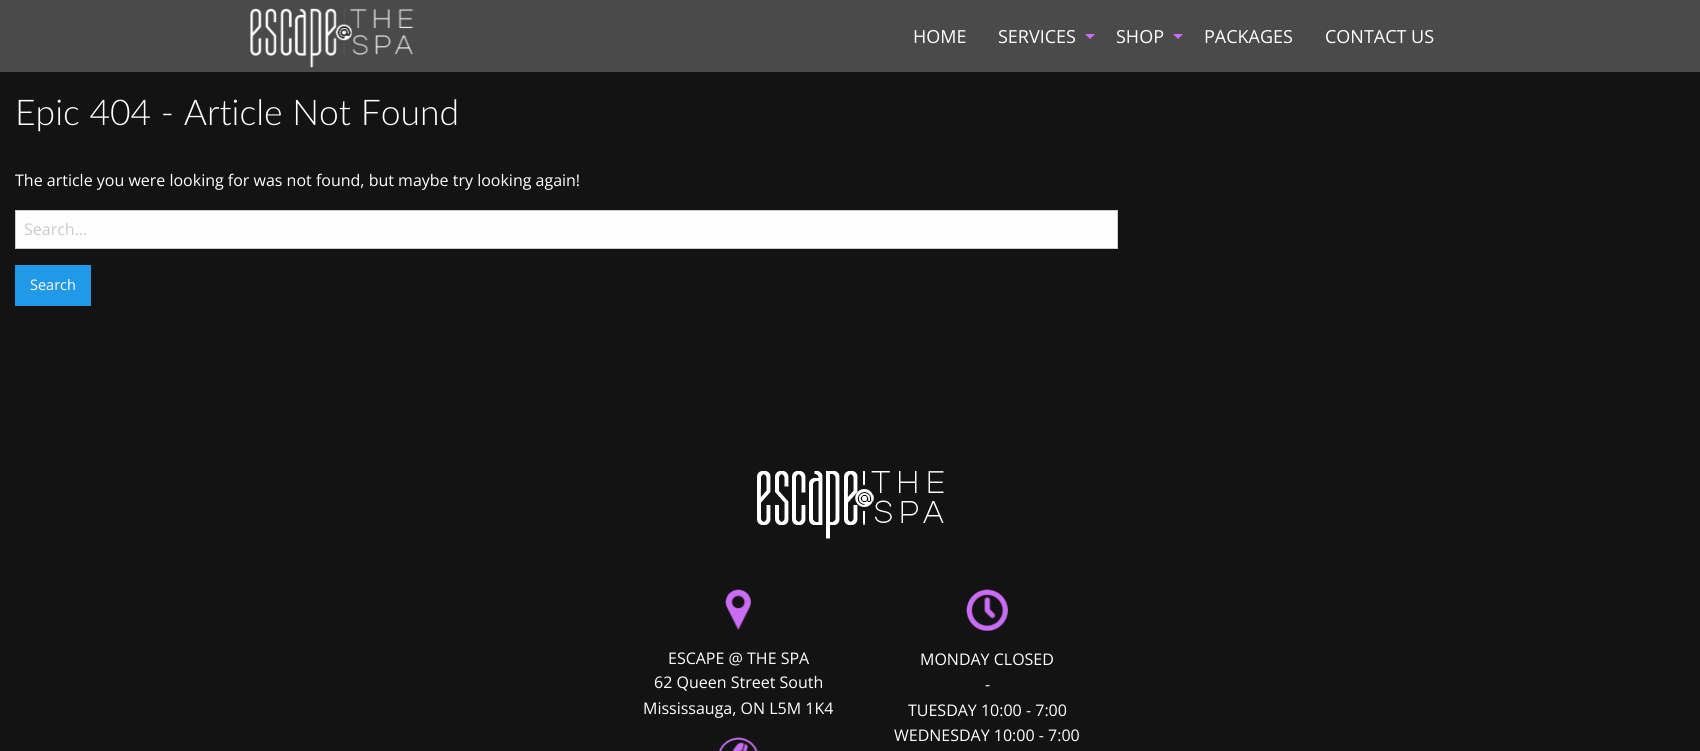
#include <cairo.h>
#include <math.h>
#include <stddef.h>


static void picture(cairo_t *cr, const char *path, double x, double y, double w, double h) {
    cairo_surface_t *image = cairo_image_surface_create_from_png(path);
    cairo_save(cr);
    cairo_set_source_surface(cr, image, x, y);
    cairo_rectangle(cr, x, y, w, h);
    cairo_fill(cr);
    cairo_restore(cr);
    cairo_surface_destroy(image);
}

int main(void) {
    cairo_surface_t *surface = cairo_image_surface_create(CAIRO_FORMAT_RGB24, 1700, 751);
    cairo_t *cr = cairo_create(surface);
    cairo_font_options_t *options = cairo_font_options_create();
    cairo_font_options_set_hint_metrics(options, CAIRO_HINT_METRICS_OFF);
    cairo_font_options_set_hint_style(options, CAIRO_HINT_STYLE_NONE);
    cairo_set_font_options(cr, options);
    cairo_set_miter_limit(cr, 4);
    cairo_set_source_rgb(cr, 0.078, 0.078, 0.082);
    cairo_paint(cr);
    cairo_set_source_rgb(cr, 0.29, 0.29, 0.294);
    cairo_rectangle(cr, 0, 0, 1700, 72);
    cairo_fill(cr);
    picture(cr, "img1.png", 250, 8, 164, 60);
    cairo_select_font_face(cr, "Open Sans", CAIRO_FONT_SLANT_NORMAL, CAIRO_FONT_WEIGHT_NORMAL);
    cairo_set_font_size(cr, 18);
    cairo_set_source_rgb(cr, 1, 1, 1);
    cairo_move_to(cr, 913, 43);
    cairo_show_text(cr, "HOME");
    cairo_move_to(cr, 998, 43);
    cairo_show_text(cr, "SERVICES");
    cairo_set_source_rgb(cr, 0.796, 0.424, 0.957);
    cairo_new_path(cr);
    cairo_move_to(cr, 1085, 34);
    cairo_line_to(cr, 1095, 34);
    cairo_line_to(cr, 1090, 39);
    cairo_close_path(cr);
    cairo_fill(cr);
    cairo_set_source_rgb(cr, 1, 1, 1);
    cairo_move_to(cr, 1116, 43);
    cairo_show_text(cr, "SHOP");
    cairo_set_source_rgb(cr, 0.796, 0.424, 0.957);
    cairo_new_path(cr);
    cairo_move_to(cr, 1173, 34);
    cairo_line_to(cr, 1183, 34);
    cairo_line_to(cr, 1178, 39);
    cairo_close_path(cr);
    cairo_fill(cr);
    cairo_set_source_rgb(cr, 1, 1, 1);
    cairo_move_to(cr, 1204, 43);
    cairo_show_text(cr, "PACKAGES");
    cairo_move_to(cr, 1325, 43);
    cairo_show_text(cr, "CONTACT US");
    cairo_select_font_face(cr, "Lato Light", CAIRO_FONT_SLANT_NORMAL, CAIRO_FONT_WEIGHT_NORMAL);
    cairo_set_font_size(cr, 35.5);
    cairo_move_to(cr, 15, 125);
    cairo_show_text(cr, "Epic 404 - Article Not Found");
    cairo_select_font_face(cr, "Open Sans", CAIRO_FONT_SLANT_NORMAL, CAIRO_FONT_WEIGHT_NORMAL);
    cairo_set_font_size(cr, 16);
    cairo_move_to(cr, 15, 186);
    cairo_show_text(cr, "The article you were looking for was not found, but maybe try looking again!");
    cairo_set_source_rgb(cr, 0.996, 0.996, 0.996);
    cairo_rectangle(cr, 15.5, 210.5, 1102, 38);
    cairo_fill_preserve(cr);
    cairo_set_source_rgb(cr, 0.792, 0.792, 0.792);
    cairo_set_line_width(cr, 1);
    cairo_stroke(cr);
    cairo_move_to(cr, 24, 235);
    cairo_show_text(cr, "Search...");
    cairo_set_source_rgb(cr, 0.129, 0.6, 0.91);
    cairo_rectangle(cr, 15, 265, 76, 41);
    cairo_fill(cr);
    cairo_set_font_size(cr, 14.5);
    cairo_set_source_rgb(cr, 1, 1, 1);
    cairo_move_to(cr, 30, 290);
    cairo_show_text(cr, "Search");
    picture(cr, "img2.png", 757, 471, 187, 68);
    picture(cr, "img3.png", 725, 589, 26, 41);
    cairo_set_font_size(cr, 16);
    cairo_move_to(cr, 668, 664);
    cairo_show_text(cr, "ESCAPE @ THE SPA");
    cairo_move_to(cr, 654, 688);
    cairo_show_text(cr, "62 Queen Street South");
    cairo_move_to(cr, 643, 714);
    cairo_show_text(cr, "Mississauga, ON L5M 1K4");
    picture(cr, "img4.png", 719, 737, 39, 14);
    picture(cr, "img5.png", 966, 589, 42, 42);
    cairo_move_to(cr, 920, 665);
    cairo_show_text(cr, "MONDAY CLOSED");
    cairo_move_to(cr, 985, 690);
    cairo_show_text(cr, "-");
    cairo_move_to(cr, 908, 716);
    cairo_show_text(cr, "TUESDAY 10:00 - 7:00");
    cairo_move_to(cr, 894, 741);
    cairo_show_text(cr, "WEDNESDAY 10:00 - 7:00");
    cairo_surface_write_to_png(surface, "page.png");
    cairo_font_options_destroy(options);
    cairo_destroy(cr);
    cairo_surface_destroy(surface);
    return 0;
}
